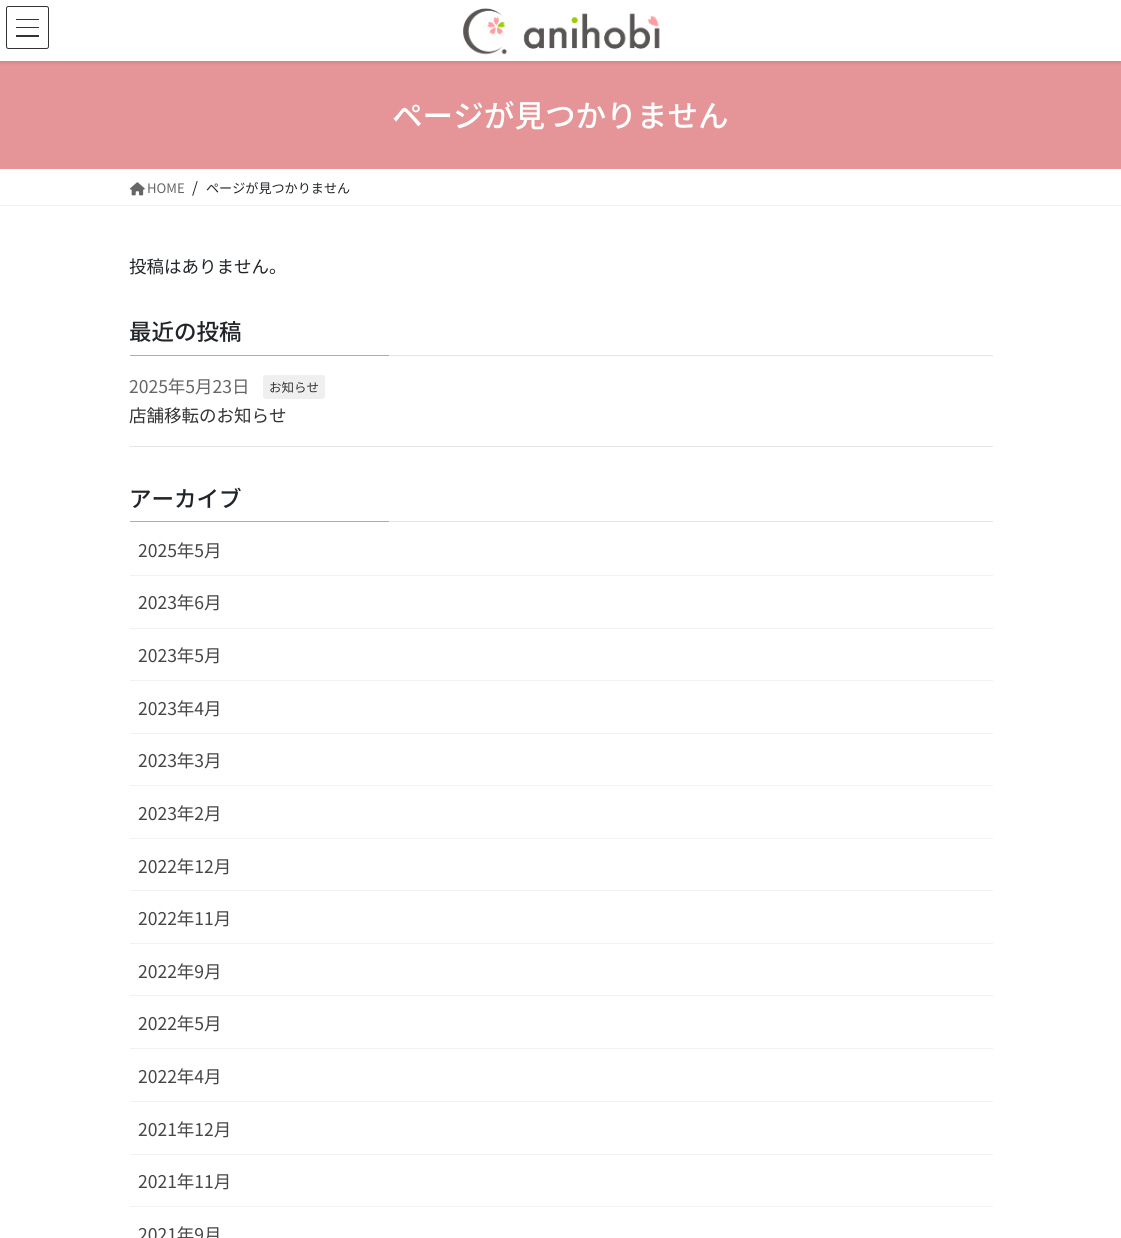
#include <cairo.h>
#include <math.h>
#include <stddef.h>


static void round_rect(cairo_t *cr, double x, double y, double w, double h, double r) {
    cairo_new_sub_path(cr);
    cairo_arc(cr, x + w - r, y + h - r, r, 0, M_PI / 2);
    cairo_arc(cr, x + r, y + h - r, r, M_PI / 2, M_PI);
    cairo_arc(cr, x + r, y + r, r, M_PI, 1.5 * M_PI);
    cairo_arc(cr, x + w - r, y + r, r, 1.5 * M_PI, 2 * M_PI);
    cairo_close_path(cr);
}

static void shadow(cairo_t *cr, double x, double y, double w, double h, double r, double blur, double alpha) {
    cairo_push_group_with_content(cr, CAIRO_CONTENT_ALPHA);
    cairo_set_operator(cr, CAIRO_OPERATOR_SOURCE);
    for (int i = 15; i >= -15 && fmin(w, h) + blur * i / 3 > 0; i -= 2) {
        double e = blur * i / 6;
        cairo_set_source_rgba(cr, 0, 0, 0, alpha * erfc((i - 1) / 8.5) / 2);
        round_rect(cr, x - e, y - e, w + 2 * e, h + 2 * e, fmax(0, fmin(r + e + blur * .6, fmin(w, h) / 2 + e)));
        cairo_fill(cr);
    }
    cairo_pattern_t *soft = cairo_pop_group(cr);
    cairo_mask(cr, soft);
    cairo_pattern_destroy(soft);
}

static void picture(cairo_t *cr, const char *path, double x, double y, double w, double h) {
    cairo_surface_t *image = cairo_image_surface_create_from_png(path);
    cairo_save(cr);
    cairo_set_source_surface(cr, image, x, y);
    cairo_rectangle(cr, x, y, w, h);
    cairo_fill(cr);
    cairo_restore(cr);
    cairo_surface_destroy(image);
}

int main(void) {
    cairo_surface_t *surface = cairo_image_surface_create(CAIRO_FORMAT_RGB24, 1121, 1238);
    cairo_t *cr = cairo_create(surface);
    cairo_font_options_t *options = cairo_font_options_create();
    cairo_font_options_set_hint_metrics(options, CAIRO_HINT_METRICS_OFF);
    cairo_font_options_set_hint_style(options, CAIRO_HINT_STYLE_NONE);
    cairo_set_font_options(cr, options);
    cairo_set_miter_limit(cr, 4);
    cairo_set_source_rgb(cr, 1, 1, 1);
    cairo_paint(cr);
    cairo_set_source_rgb(cr, 0.898, 0.584, 0.592);
    cairo_rectangle(cr, 0, 61, 1121, 108);
    cairo_fill(cr);
    cairo_save(cr);
    cairo_rectangle(cr, 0, 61, 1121, 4);
    cairo_clip(cr);
    cairo_set_source_rgb(cr, 0, 0, 0);
    shadow(cr, 0, 1, 1121, 62, 0, 2, 0.1);
    cairo_restore(cr);
    picture(cr, "img1.png", 463, 8, 197, 47);
    cairo_set_source_rgb(cr, 0.2, 0.2, 0.2);
    cairo_rectangle(cr, 16, 19, 23, 1);
    cairo_fill(cr);
    cairo_rectangle(cr, 16, 27, 23, 1);
    cairo_fill(cr);
    cairo_rectangle(cr, 16, 35, 23, 2);
    cairo_fill(cr);
    round_rect(cr, 6.5, 6.5, 42, 42, 2);
    cairo_set_line_width(cr, 1);
    cairo_stroke(cr);
    cairo_select_font_face(cr, "Noto Sans JP Medium", CAIRO_FONT_SLANT_NORMAL, CAIRO_FONT_WEIGHT_NORMAL);
    cairo_set_font_size(cr, 30.6);
    cairo_set_source_rgb(cr, 1, 1, 1);
    cairo_move_to(cr, 392, 127);
    cairo_show_text(cr, "ページが見つかりません");
    cairo_set_source_rgb(cr, 0.949, 0.949, 0.949);
    cairo_rectangle(cr, 0, 205, 1121, 1);
    cairo_fill(cr);
    picture(cr, "img2.png", 130, 182, 15, 14);
    cairo_select_font_face(cr, "Noto Sans JP", CAIRO_FONT_SLANT_NORMAL, CAIRO_FONT_WEIGHT_NORMAL);
    cairo_set_font_size(cr, 13.1);
    cairo_set_source_rgb(cr, 0.4, 0.4, 0.4);
    cairo_move_to(cr, 147, 193);
    cairo_show_text(cr, "HOME");
    cairo_set_font_size(cr, 15);
    cairo_set_source_rgb(cr, 0.129, 0.145, 0.161);
    cairo_move_to(cr, 192, 193);
    cairo_show_text(cr, "/");
    cairo_set_font_size(cr, 13.1);
    cairo_move_to(cr, 206, 193);
    cairo_show_text(cr, "ページが見つかりません");
    cairo_set_font_size(cr, 17.5);
    cairo_move_to(cr, 129, 273);
    cairo_show_text(cr, "投稿はありません。");
    cairo_set_source_rgb(cr, 0.902, 0.902, 0.902);
    cairo_rectangle(cr, 389, 355, 604, 1);
    cairo_fill(cr);
    cairo_select_font_face(cr, "Noto Sans JP Medium", CAIRO_FONT_SLANT_NORMAL, CAIRO_FONT_WEIGHT_NORMAL);
    cairo_set_font_size(cr, 22.5);
    cairo_set_source_rgb(cr, 0.129, 0.145, 0.161);
    cairo_move_to(cr, 129, 340);
    cairo_show_text(cr, "最近の投稿");
    cairo_set_source_rgb(cr, 0.898, 0.584, 0.592);
    cairo_rectangle(cr, 130, 355, 259, 1);
    cairo_fill(cr);
    cairo_set_source_rgb(cr, 0.898, 0.898, 0.898);
    cairo_rectangle(cr, 130, 446, 863, 1);
    cairo_fill(cr);
    cairo_select_font_face(cr, "Noto Sans JP", CAIRO_FONT_SLANT_NORMAL, CAIRO_FONT_WEIGHT_NORMAL);
    cairo_set_font_size(cr, 17.5);
    cairo_set_source_rgb(cr, 0.4, 0.4, 0.4);
    cairo_move_to(cr, 129, 393);
    cairo_show_text(cr, "2025年5月23日");
    cairo_set_source_rgb(cr, 0.937, 0.937, 0.937);
    round_rect(cr, 263, 375, 62, 24, 3);
    cairo_fill(cr);
    cairo_set_font_size(cr, 12.5);
    cairo_set_source_rgb(cr, 0.2, 0.2, 0.2);
    cairo_move_to(cr, 269, 392);
    cairo_show_text(cr, "お知らせ");
    cairo_set_font_size(cr, 17.5);
    cairo_move_to(cr, 129, 422);
    cairo_show_text(cr, "店舗移転のお知らせ");
    cairo_set_source_rgb(cr, 0.902, 0.902, 0.902);
    cairo_rectangle(cr, 389, 521, 604, 1);
    cairo_fill(cr);
    cairo_select_font_face(cr, "Noto Sans JP Medium", CAIRO_FONT_SLANT_NORMAL, CAIRO_FONT_WEIGHT_NORMAL);
    cairo_set_font_size(cr, 22.5);
    cairo_set_source_rgb(cr, 0.129, 0.145, 0.161);
    cairo_move_to(cr, 129, 507);
    cairo_show_text(cr, "アーカイブ");
    cairo_set_source_rgb(cr, 0.898, 0.584, 0.592);
    cairo_rectangle(cr, 130, 521, 259, 1);
    cairo_fill(cr);
    cairo_set_source_rgb(cr, 0.949, 0.949, 0.949);
    cairo_rectangle(cr, 130, 575, 863, 1);
    cairo_fill(cr);
    cairo_select_font_face(cr, "Noto Sans JP", CAIRO_FONT_SLANT_NORMAL, CAIRO_FONT_WEIGHT_NORMAL);
    cairo_set_font_size(cr, 17.5);
    cairo_set_source_rgb(cr, 0.275, 0.275, 0.275);
    cairo_move_to(cr, 138, 557);
    cairo_show_text(cr, "2025年5月");
    cairo_set_source_rgb(cr, 0.949, 0.949, 0.949);
    cairo_rectangle(cr, 130, 628, 863, 1);
    cairo_fill(cr);
    cairo_set_source_rgb(cr, 0.275, 0.275, 0.275);
    cairo_move_to(cr, 138, 609);
    cairo_show_text(cr, "2023年6月");
    cairo_set_source_rgb(cr, 0.949, 0.949, 0.949);
    cairo_rectangle(cr, 130, 680, 863, 1);
    cairo_fill(cr);
    cairo_set_source_rgb(cr, 0.275, 0.275, 0.275);
    cairo_move_to(cr, 138, 662);
    cairo_show_text(cr, "2023年5月");
    cairo_set_source_rgb(cr, 0.949, 0.949, 0.949);
    cairo_rectangle(cr, 130, 733, 863, 1);
    cairo_fill(cr);
    cairo_set_source_rgb(cr, 0.275, 0.275, 0.275);
    cairo_move_to(cr, 138, 715);
    cairo_show_text(cr, "2023年4月");
    cairo_set_source_rgb(cr, 0.949, 0.949, 0.949);
    cairo_rectangle(cr, 130, 785, 863, 1);
    cairo_fill(cr);
    cairo_set_source_rgb(cr, 0.275, 0.275, 0.275);
    cairo_move_to(cr, 138, 767);
    cairo_show_text(cr, "2023年3月");
    cairo_set_source_rgb(cr, 0.949, 0.949, 0.949);
    cairo_rectangle(cr, 130, 838, 863, 1);
    cairo_fill(cr);
    cairo_set_source_rgb(cr, 0.275, 0.275, 0.275);
    cairo_move_to(cr, 138, 820);
    cairo_show_text(cr, "2023年2月");
    cairo_set_source_rgb(cr, 0.949, 0.949, 0.949);
    cairo_rectangle(cr, 130, 890, 863, 1);
    cairo_fill(cr);
    cairo_set_source_rgb(cr, 0.275, 0.275, 0.275);
    cairo_move_to(cr, 138, 873);
    cairo_show_text(cr, "2022年12月");
    cairo_set_source_rgb(cr, 0.949, 0.949, 0.949);
    cairo_rectangle(cr, 130, 943, 863, 1);
    cairo_fill(cr);
    cairo_set_source_rgb(cr, 0.275, 0.275, 0.275);
    cairo_move_to(cr, 138, 925);
    cairo_show_text(cr, "2022年11月");
    cairo_set_source_rgb(cr, 0.949, 0.949, 0.949);
    cairo_rectangle(cr, 130, 995, 863, 1);
    cairo_fill(cr);
    cairo_set_source_rgb(cr, 0.275, 0.275, 0.275);
    cairo_move_to(cr, 138, 978);
    cairo_show_text(cr, "2022年9月");
    cairo_set_source_rgb(cr, 0.949, 0.949, 0.949);
    cairo_rectangle(cr, 130, 1048, 863, 1);
    cairo_fill(cr);
    cairo_set_source_rgb(cr, 0.275, 0.275, 0.275);
    cairo_move_to(cr, 138, 1030);
    cairo_show_text(cr, "2022年5月");
    cairo_set_source_rgb(cr, 0.949, 0.949, 0.949);
    cairo_rectangle(cr, 130, 1101, 863, 1);
    cairo_fill(cr);
    cairo_set_source_rgb(cr, 0.275, 0.275, 0.275);
    cairo_move_to(cr, 138, 1083);
    cairo_show_text(cr, "2022年4月");
    cairo_set_source_rgb(cr, 0.949, 0.949, 0.949);
    cairo_rectangle(cr, 130, 1154, 863, 1);
    cairo_fill(cr);
    cairo_set_source_rgb(cr, 0.275, 0.275, 0.275);
    cairo_move_to(cr, 138, 1136);
    cairo_show_text(cr, "2021年12月");
    cairo_set_source_rgb(cr, 0.949, 0.949, 0.949);
    cairo_rectangle(cr, 130, 1206, 863, 1);
    cairo_fill(cr);
    cairo_set_source_rgb(cr, 0.275, 0.275, 0.275);
    cairo_move_to(cr, 138, 1188);
    cairo_show_text(cr, "2021年11月");
    cairo_move_to(cr, 138, 1241);
    cairo_show_text(cr, "2021年9月");
    cairo_surface_write_to_png(surface, "page.png");
    cairo_font_options_destroy(options);
    cairo_destroy(cr);
    cairo_surface_destroy(surface);
    return 0;
}
